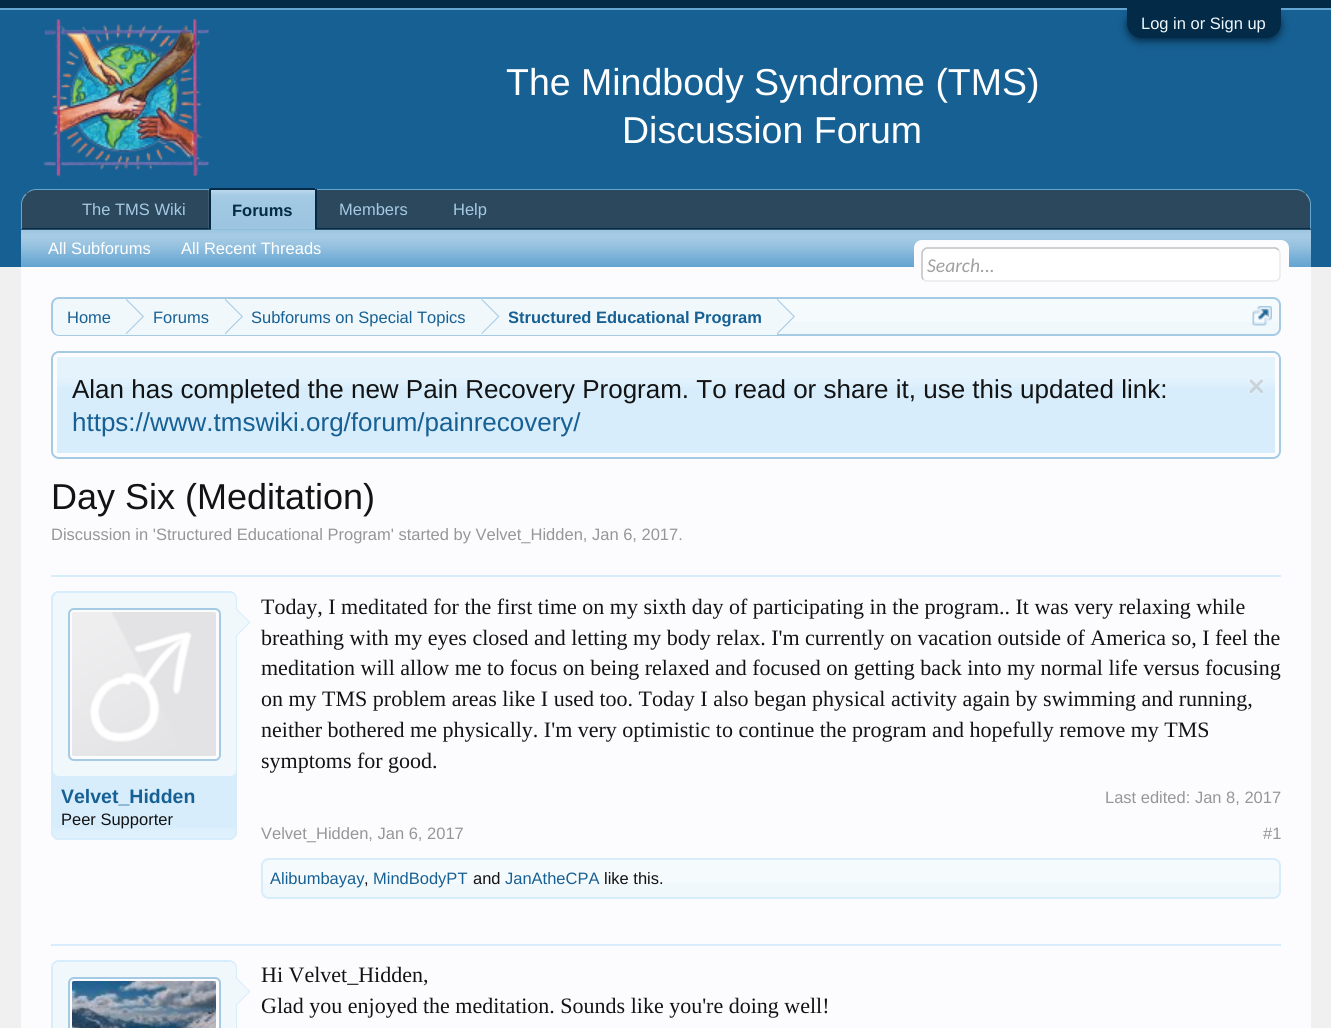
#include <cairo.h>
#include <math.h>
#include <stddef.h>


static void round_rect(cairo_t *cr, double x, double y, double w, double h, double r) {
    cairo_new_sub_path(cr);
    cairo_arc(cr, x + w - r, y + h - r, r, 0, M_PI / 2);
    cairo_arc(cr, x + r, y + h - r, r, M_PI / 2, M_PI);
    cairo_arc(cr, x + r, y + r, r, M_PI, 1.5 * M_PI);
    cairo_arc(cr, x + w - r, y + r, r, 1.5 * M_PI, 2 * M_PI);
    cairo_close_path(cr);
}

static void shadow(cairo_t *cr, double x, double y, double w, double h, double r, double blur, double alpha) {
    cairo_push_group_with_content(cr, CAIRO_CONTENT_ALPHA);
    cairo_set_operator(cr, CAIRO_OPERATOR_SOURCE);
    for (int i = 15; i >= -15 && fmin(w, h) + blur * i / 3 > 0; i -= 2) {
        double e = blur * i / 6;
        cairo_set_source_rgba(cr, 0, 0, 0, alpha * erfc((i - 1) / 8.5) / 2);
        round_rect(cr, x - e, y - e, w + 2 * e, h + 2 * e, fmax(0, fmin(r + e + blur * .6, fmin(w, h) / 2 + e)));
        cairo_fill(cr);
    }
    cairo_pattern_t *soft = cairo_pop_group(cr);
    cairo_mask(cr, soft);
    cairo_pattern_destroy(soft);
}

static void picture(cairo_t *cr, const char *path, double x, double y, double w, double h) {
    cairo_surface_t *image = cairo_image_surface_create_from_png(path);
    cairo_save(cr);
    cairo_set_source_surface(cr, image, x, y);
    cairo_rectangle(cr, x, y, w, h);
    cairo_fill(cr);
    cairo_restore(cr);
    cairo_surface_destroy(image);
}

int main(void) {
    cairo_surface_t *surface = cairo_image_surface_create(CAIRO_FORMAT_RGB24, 1331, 1028);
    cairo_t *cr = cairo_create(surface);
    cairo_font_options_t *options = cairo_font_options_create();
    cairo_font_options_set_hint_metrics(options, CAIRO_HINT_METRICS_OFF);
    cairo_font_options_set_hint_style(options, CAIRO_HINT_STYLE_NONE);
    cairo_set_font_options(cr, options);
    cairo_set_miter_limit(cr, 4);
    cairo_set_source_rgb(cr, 0.941, 0.941, 0.941);
    cairo_paint(cr);
    cairo_set_source_rgb(cr, 0.012, 0.165, 0.275);
    cairo_rectangle(cr, 0, 0, 1331, 8);
    cairo_fill(cr);
    cairo_set_source_rgb(cr, 0.396, 0.647, 0.82);
    cairo_rectangle(cr, 0, 8, 1331, 2);
    cairo_fill(cr);
    cairo_set_source_rgb(cr, 0.09, 0.376, 0.576);
    cairo_rectangle(cr, 0, 10, 1331, 257);
    cairo_fill(cr);
    cairo_set_source_rgb(cr, 0.012, 0.165, 0.275);
    shadow(cr, 1127, 11, 154, 30, 15, 4, 1);
    cairo_set_source_rgb(cr, 0.012, 0.165, 0.275);
    cairo_new_path(cr);
    cairo_move_to(cr, 1127, 8);
    cairo_line_to(cr, 1281, 8);
    cairo_line_to(cr, 1281, 23);
    cairo_curve_to(cr, 1281, 31.5, 1274.5, 38, 1266, 38);
    cairo_line_to(cr, 1142, 38);
    cairo_curve_to(cr, 1133.5, 38, 1127, 31.5, 1127, 23);
    cairo_close_path(cr);
    cairo_fill(cr);
    cairo_select_font_face(cr, "Liberation Sans", CAIRO_FONT_SLANT_NORMAL, CAIRO_FONT_WEIGHT_NORMAL);
    cairo_set_font_size(cr, 16.5);
    cairo_set_source_rgb(cr, 0.941, 0.969, 0.988);
    cairo_move_to(cr, 1141, 29);
    cairo_show_text(cr, "Log in or Sign up");
    picture(cr, "img1.png", 43, 19, 166, 158);
    cairo_set_font_size(cr, 37.5);
    cairo_set_source_rgb(cr, 1, 1, 1);
    cairo_move_to(cr, 506, 95);
    cairo_show_text(cr, "The Mindbody Syndrome (TMS)");
    cairo_move_to(cr, 622, 143);
    cairo_show_text(cr, "Discussion Forum");
    cairo_set_source_rgb(cr, 0.169, 0.282, 0.361);
    cairo_new_path(cr);
    cairo_move_to(cr, 36, 189);
    cairo_line_to(cr, 1296, 189);
    cairo_curve_to(cr, 1304.5, 189, 1311, 195.5, 1311, 204);
    cairo_line_to(cr, 1311, 230);
    cairo_line_to(cr, 21, 230);
    cairo_line_to(cr, 21, 204);
    cairo_curve_to(cr, 21, 195.5, 27.5, 189, 36, 189);
    cairo_close_path(cr);
    cairo_fill(cr);
    cairo_set_source_rgb(cr, 0.396, 0.647, 0.82);
    cairo_new_path(cr);
    cairo_move_to(cr, 36, 189);
    cairo_curve_to(cr, 32, 189, 28, 191, 26, 194);
    cairo_curve_to(cr, 29, 192, 32, 190, 36, 190);
    cairo_line_to(cr, 1296, 190);
    cairo_curve_to(cr, 1300, 190, 1303, 192, 1306, 194);
    cairo_curve_to(cr, 1304, 191, 1300, 189, 1296, 189);
    cairo_close_path(cr);
    cairo_fill(cr);
    cairo_new_path(cr);
    cairo_move_to(cr, 1311, 229.5);
    cairo_line_to(cr, 1311, 204);
    cairo_curve_to(cr, 1311, 200, 1309, 196, 1306.5, 193.5);
    cairo_line_to(cr, 1305.5, 194.5);
    cairo_curve_to(cr, 1308, 197, 1310, 200.5, 1310, 204);
    cairo_line_to(cr, 1310, 228);
    cairo_line_to(cr, 1309.5, 228);
    cairo_close_path(cr);
    cairo_fill(cr);
    cairo_set_source_rgb(cr, 0.012, 0.165, 0.275);
    cairo_new_path(cr);
    cairo_move_to(cr, 1311, 230);
    cairo_line_to(cr, 21, 230);
    cairo_line_to(cr, 22, 228);
    cairo_line_to(cr, 1310, 228);
    cairo_close_path(cr);
    cairo_fill(cr);
    cairo_set_source_rgb(cr, 0.396, 0.647, 0.82);
    cairo_new_path(cr);
    cairo_move_to(cr, 21, 229.5);
    cairo_line_to(cr, 22.5, 228);
    cairo_line_to(cr, 22, 228);
    cairo_line_to(cr, 22, 204);
    cairo_curve_to(cr, 22, 200.5, 24, 197, 26.5, 194.5);
    cairo_line_to(cr, 25.5, 193.5);
    cairo_curve_to(cr, 23, 196, 21, 200, 21, 204);
    cairo_close_path(cr);
    cairo_fill(cr);
    cairo_set_font_size(cr, 16.5);
    cairo_set_source_rgb(cr, 0.647, 0.792, 0.894);
    cairo_move_to(cr, 82, 215);
    cairo_show_text(cr, "The TMS Wiki");
    cairo_move_to(cr, 339, 215);
    cairo_show_text(cr, "Members");
    cairo_move_to(cr, 453, 215);
    cairo_show_text(cr, "Help");
    cairo_set_source_rgb(cr, 0.396, 0.647, 0.82);
    cairo_new_path(cr);
    cairo_move_to(cr, 212, 188);
    cairo_line_to(cr, 314, 188);
    cairo_curve_to(cr, 315.5, 188, 317, 189.5, 317, 191);
    cairo_line_to(cr, 317, 230);
    cairo_line_to(cr, 209, 230);
    cairo_line_to(cr, 209, 191);
    cairo_curve_to(cr, 209, 189.5, 210.5, 188, 212, 188);
    cairo_close_path(cr);
    cairo_fill(cr);
    picture(cr, "img2.png", 208, 189, 107, 41);
    cairo_set_source_rgb(cr, 0.012, 0.165, 0.275);
    cairo_rectangle(cr, 210, 188, 105, 2);
    cairo_fill(cr);
    cairo_rectangle(cr, 315, 189, 2, 41);
    cairo_fill(cr);
    cairo_rectangle(cr, 209, 189, 2, 41);
    cairo_fill(cr);
    cairo_select_font_face(cr, "Liberation Sans", CAIRO_FONT_SLANT_NORMAL, CAIRO_FONT_WEIGHT_BOLD);
    cairo_move_to(cr, 232, 216);
    cairo_show_text(cr, "Forums");
    cairo_set_source_rgb(cr, 0.396, 0.647, 0.82);
    cairo_rectangle(cr, 21, 230, 1290, 37);
    cairo_fill(cr);
    picture(cr, "img3.png", 21, 229, 1290, 36);
    cairo_select_font_face(cr, "Liberation Sans", CAIRO_FONT_SLANT_NORMAL, CAIRO_FONT_WEIGHT_NORMAL);
    cairo_set_source_rgb(cr, 1, 1, 1);
    cairo_move_to(cr, 48, 254);
    cairo_show_text(cr, "All Subforums");
    cairo_move_to(cr, 181, 254);
    cairo_show_text(cr, "All Recent Threads");
    cairo_set_source_rgb(cr, 0.988, 0.988, 1);
    cairo_rectangle(cr, 21, 267, 1290, 761);
    cairo_fill(cr);
    round_rect(cr, 914, 240, 375, 42, 8);
    cairo_fill(cr);
    cairo_set_source_rgb(cr, 1, 1, 1);
    round_rect(cr, 921, 248, 360, 34, 6);
    cairo_fill(cr);
    cairo_new_path(cr);
    cairo_move_to(cr, 1278.5, 250);
    cairo_curve_to(cr, 1279.5, 251, 1280, 252, 1280, 253.5);
    cairo_line_to(cr, 1280, 276);
    cairo_curve_to(cr, 1280, 277.5, 1279.5, 278.5, 1278.5, 279.5);
    cairo_curve_to(cr, 1277.5, 280.5, 1276.5, 281, 1275, 281);
    cairo_line_to(cr, 927, 281);
    cairo_curve_to(cr, 925.5, 281, 924.5, 280.5, 923.5, 279.5);
    cairo_set_source_rgb(cr, 0.914, 0.914, 0.914);
    cairo_set_line_width(cr, 1.5);
    cairo_stroke(cr);
    cairo_new_path(cr);
    cairo_move_to(cr, 923.5, 279.5);
    cairo_curve_to(cr, 922.5, 278.5, 922, 277.5, 922, 276);
    cairo_line_to(cr, 922, 253.5);
    cairo_curve_to(cr, 922, 252, 922.5, 251, 923.5, 250);
    cairo_curve_to(cr, 924.5, 249, 925.5, 248, 927, 248);
    cairo_line_to(cr, 1275, 248);
    cairo_curve_to(cr, 1276.5, 248, 1277.5, 249, 1278.5, 250);
    cairo_set_source_rgb(cr, 0.753, 0.753, 0.753);
    cairo_stroke(cr);
    cairo_select_font_face(cr, "Carlito", CAIRO_FONT_SLANT_ITALIC, CAIRO_FONT_WEIGHT_NORMAL);
    cairo_set_font_size(cr, 19.5);
    cairo_set_source_rgb(cr, 0.627, 0.627, 0.627);
    cairo_move_to(cr, 927, 272);
    cairo_show_text(cr, "Search...");
    cairo_set_source_rgb(cr, 0.941, 0.969, 0.988);
    round_rect(cr, 51, 297, 1230, 39, 8);
    cairo_fill(cr);
    picture(cr, "img4.png", 51, 299, 1230, 23);
    round_rect(cr, 52, 298, 1228, 37, 7);
    cairo_set_source_rgb(cr, 0.647, 0.792, 0.894);
    cairo_set_line_width(cr, 2);
    cairo_stroke(cr);
    cairo_save(cr);
    round_rect(cr, 53, 299, 1227, 36, 6);
    cairo_clip(cr);
    cairo_set_source_rgb(cr, 0.941, 0.969, 0.988);
    cairo_new_path(cr);
    cairo_move_to(cr, 61, 299);
    cairo_line_to(cr, 126, 299);
    cairo_line_to(cr, 126, 336);
    cairo_line_to(cr, 61, 336);
    cairo_curve_to(cr, 56.5, 336, 53, 332.5, 53, 328);
    cairo_line_to(cr, 53, 307);
    cairo_curve_to(cr, 53, 302.5, 56.5, 299, 61, 299);
    cairo_close_path(cr);
    cairo_fill(cr);
    cairo_restore(cr);
    cairo_select_font_face(cr, "Liberation Sans", CAIRO_FONT_SLANT_NORMAL, CAIRO_FONT_WEIGHT_NORMAL);
    cairo_set_font_size(cr, 16.5);
    cairo_set_source_rgb(cr, 0.09, 0.376, 0.576);
    cairo_move_to(cr, 67, 323);
    cairo_show_text(cr, "Home");
    cairo_set_source_rgb(cr, 0.941, 0.969, 0.988);
    cairo_rectangle(cr, 126, 299, 651, 36);
    cairo_fill(cr);
    cairo_set_source_rgb(cr, 0.647, 0.792, 0.894);
    cairo_new_path(cr);
    cairo_move_to(cr, 126, 334.5);
    cairo_line_to(cr, 126, 298.5);
    cairo_line_to(cr, 144, 316.5);
    cairo_close_path(cr);
    cairo_fill(cr);
    cairo_set_source_rgb(cr, 0.941, 0.969, 0.988);
    cairo_new_path(cr);
    cairo_move_to(cr, 124.5, 334.5);
    cairo_line_to(cr, 124.5, 298.5);
    cairo_line_to(cr, 142.5, 316.5);
    cairo_close_path(cr);
    cairo_fill(cr);
    cairo_set_source_rgb(cr, 0.09, 0.376, 0.576);
    cairo_move_to(cr, 153, 323);
    cairo_show_text(cr, "Forums");
    cairo_set_source_rgb(cr, 0.647, 0.792, 0.894);
    cairo_new_path(cr);
    cairo_move_to(cr, 225, 334.5);
    cairo_line_to(cr, 225, 298.5);
    cairo_line_to(cr, 243, 316.5);
    cairo_close_path(cr);
    cairo_fill(cr);
    cairo_set_source_rgb(cr, 0.941, 0.969, 0.988);
    cairo_new_path(cr);
    cairo_move_to(cr, 223.5, 334.5);
    cairo_line_to(cr, 223.5, 298.5);
    cairo_line_to(cr, 241.5, 316.5);
    cairo_close_path(cr);
    cairo_fill(cr);
    cairo_set_source_rgb(cr, 0.09, 0.376, 0.576);
    cairo_move_to(cr, 251, 323);
    cairo_show_text(cr, "Subforums on Special Topics");
    cairo_set_source_rgb(cr, 0.647, 0.792, 0.894);
    cairo_new_path(cr);
    cairo_move_to(cr, 481.5, 334.5);
    cairo_line_to(cr, 481.5, 298.5);
    cairo_line_to(cr, 499.5, 316.5);
    cairo_close_path(cr);
    cairo_fill(cr);
    cairo_set_source_rgb(cr, 0.941, 0.969, 0.988);
    cairo_new_path(cr);
    cairo_move_to(cr, 480, 334.5);
    cairo_line_to(cr, 480, 298.5);
    cairo_line_to(cr, 498, 316.5);
    cairo_close_path(cr);
    cairo_fill(cr);
    cairo_save(cr);
    cairo_rectangle(cr, 509, 299, 253, 36);
    cairo_clip(cr);
    cairo_select_font_face(cr, "Liberation Sans", CAIRO_FONT_SLANT_NORMAL, CAIRO_FONT_WEIGHT_BOLD);
    cairo_set_source_rgb(cr, 0.09, 0.376, 0.576);
    cairo_move_to(cr, 508, 323);
    cairo_show_text(cr, "Structured Educational Program");
    cairo_restore(cr);
    cairo_set_source_rgb(cr, 0.647, 0.792, 0.894);
    cairo_new_path(cr);
    cairo_move_to(cr, 777, 334.5);
    cairo_line_to(cr, 777, 298.5);
    cairo_line_to(cr, 795, 316.5);
    cairo_close_path(cr);
    cairo_fill(cr);
    cairo_set_source_rgb(cr, 0.941, 0.969, 0.988);
    cairo_new_path(cr);
    cairo_move_to(cr, 775.5, 334.5);
    cairo_line_to(cr, 775.5, 298.5);
    cairo_line_to(cr, 793.5, 316.5);
    cairo_close_path(cr);
    cairo_fill(cr);
    picture(cr, "img5.png", 1252, 306, 20, 20);
    round_rect(cr, 52, 352, 1228, 106, 7);
    cairo_set_source_rgb(cr, 0.647, 0.792, 0.894);
    cairo_stroke(cr);
    cairo_set_source_rgb(cr, 0.843, 0.929, 0.988);
    cairo_rectangle(cr, 57, 357, 1218, 96);
    cairo_fill(cr);
    picture(cr, "img6.png", 57, 357, 1218, 30);
    cairo_set_font_size(cr, 26);
    cairo_set_source_rgb(cr, 0.078, 0.078, 0.078);
    cairo_move_to(cr, 72, 398);
    cairo_show_text(cr, "Alan has completed the new Pain Recovery Program. To read or share it, use this updated link:");
    cairo_set_source_rgb(cr, 0.09, 0.376, 0.576);
    cairo_move_to(cr, 72, 431);
    cairo_show_text(cr, "https://www.tmswiki.org/forum/painrecovery/");
    picture(cr, "img7.png", 1248, 378, 17, 17);
    cairo_set_font_size(cr, 36);
    cairo_set_source_rgb(cr, 0.078, 0.078, 0.078);
    cairo_move_to(cr, 51, 509);
    cairo_show_text(cr, "Day Six (Meditation)");
    cairo_set_font_size(cr, 16.5);
    cairo_set_source_rgb(cr, 0.588, 0.588, 0.588);
    cairo_move_to(cr, 51, 540);
    cairo_show_text(cr, "Discussion in 'Structured Educational Program' started by Velvet_Hidden, Jan 6, 2017.");
    cairo_set_source_rgb(cr, 0.843, 0.929, 0.988);
    cairo_rectangle(cr, 51, 575, 1230, 2);
    cairo_fill(cr);
    round_rect(cr, 51, 591, 186, 249, 8);
    cairo_fill(cr);
    picture(cr, "img8.png", 51, 828, 186, 11);
    round_rect(cr, 52, 592, 184, 247, 7);
    cairo_stroke(cr);
    cairo_set_source_rgb(cr, 0.941, 0.969, 0.988);
    round_rect(cr, 53, 593, 183, 183, 6);
    cairo_fill(cr);
    cairo_set_source_rgb(cr, 0.988, 0.988, 1);
    round_rect(cr, 69, 609, 151, 151, 5);
    cairo_fill_preserve(cr);
    cairo_set_source_rgb(cr, 0.647, 0.792, 0.894);
    cairo_stroke(cr);
    picture(cr, "img9.png", 72, 612, 144, 144);
    cairo_set_source_rgb(cr, 0.843, 0.929, 0.988);
    cairo_new_path(cr);
    cairo_move_to(cr, 235.5, 637.5);
    cairo_line_to(cr, 235.5, 607.5);
    cairo_line_to(cr, 250.5, 622.5);
    cairo_close_path(cr);
    cairo_fill(cr);
    cairo_set_source_rgb(cr, 0.941, 0.969, 0.988);
    cairo_new_path(cr);
    cairo_move_to(cr, 234, 637.5);
    cairo_line_to(cr, 234, 607.5);
    cairo_line_to(cr, 249, 622.5);
    cairo_close_path(cr);
    cairo_fill(cr);
    cairo_select_font_face(cr, "Liberation Sans", CAIRO_FONT_SLANT_NORMAL, CAIRO_FONT_WEIGHT_BOLD);
    cairo_set_font_size(cr, 19.5);
    cairo_set_source_rgb(cr, 0.09, 0.376, 0.576);
    cairo_move_to(cr, 61, 803);
    cairo_show_text(cr, "Velvet_Hidden");
    cairo_select_font_face(cr, "Liberation Sans", CAIRO_FONT_SLANT_NORMAL, CAIRO_FONT_WEIGHT_NORMAL);
    cairo_set_font_size(cr, 16.5);
    cairo_set_source_rgb(cr, 0.078, 0.078, 0.078);
    cairo_move_to(cr, 61, 825);
    cairo_show_text(cr, "Peer Supporter");
    cairo_select_font_face(cr, "Liberation Serif", CAIRO_FONT_SLANT_NORMAL, CAIRO_FONT_WEIGHT_NORMAL);
    cairo_set_font_size(cr, 22);
    cairo_move_to(cr, 261, 614);
    cairo_show_text(cr, "Today, I meditated for the first time on my sixth day of participating in the program.. It was very relaxing while");
    cairo_move_to(cr, 261, 645);
    cairo_show_text(cr, "breathing with my eyes closed and letting my body relax. I'm currently on vacation outside of America so, I feel the");
    cairo_move_to(cr, 261, 675);
    cairo_show_text(cr, "meditation will allow me to focus on being relaxed and focused on getting back into my normal life versus focusing");
    cairo_move_to(cr, 261, 706);
    cairo_show_text(cr, "on my TMS problem areas like I used too. Today I also began physical activity again by swimming and running,");
    cairo_move_to(cr, 261, 737);
    cairo_show_text(cr, "neither bothered me physically. I'm very optimistic to continue the program and hopefully remove my TMS");
    cairo_move_to(cr, 261, 768);
    cairo_show_text(cr, "symptoms for good.");
    cairo_select_font_face(cr, "Liberation Sans", CAIRO_FONT_SLANT_NORMAL, CAIRO_FONT_WEIGHT_NORMAL);
    cairo_set_font_size(cr, 16.5);
    cairo_set_source_rgb(cr, 0.588, 0.588, 0.588);
    cairo_move_to(cr, 1105, 803);
    cairo_show_text(cr, "Last edited: Jan 8, 2017");
    cairo_move_to(cr, 261, 839);
    cairo_show_text(cr, "Velvet_Hidden, Jan 6, 2017");
    cairo_move_to(cr, 1263, 839);
    cairo_show_text(cr, "#1");
    cairo_set_source_rgb(cr, 0.941, 0.969, 0.988);
    round_rect(cr, 261, 858, 1020, 41, 8);
    cairo_fill(cr);
    picture(cr, "img10.png", 261, 860, 1020, 23);
    round_rect(cr, 262, 859, 1018, 39, 7);
    cairo_set_source_rgb(cr, 0.843, 0.929, 0.988);
    cairo_stroke(cr);
    cairo_set_source_rgb(cr, 0.09, 0.376, 0.576);
    cairo_move_to(cr, 270, 884);
    cairo_show_text(cr, "Alibumbayay");
    cairo_set_source_rgb(cr, 0.078, 0.078, 0.078);
    cairo_move_to(cr, 364, 884);
    cairo_show_text(cr, ",");
    cairo_set_source_rgb(cr, 0.09, 0.376, 0.576);
    cairo_move_to(cr, 373, 884);
    cairo_show_text(cr, "MindBodyPT");
    cairo_set_source_rgb(cr, 0.078, 0.078, 0.078);
    cairo_move_to(cr, 473, 884);
    cairo_show_text(cr, "and");
    cairo_set_source_rgb(cr, 0.09, 0.376, 0.576);
    cairo_move_to(cr, 505, 884);
    cairo_show_text(cr, "JanAtheCPA");
    cairo_set_source_rgb(cr, 0.078, 0.078, 0.078);
    cairo_move_to(cr, 604, 884);
    cairo_show_text(cr, "like this.");
    cairo_set_source_rgb(cr, 0.843, 0.929, 0.988);
    cairo_rectangle(cr, 51, 944, 1230, 2);
    cairo_fill(cr);
    round_rect(cr, 52, 961, 184, 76, 7);
    cairo_stroke(cr);
    cairo_set_source_rgb(cr, 0.941, 0.969, 0.988);
    round_rect(cr, 53, 962, 183, 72, 6);
    cairo_fill(cr);
    cairo_set_source_rgb(cr, 0.988, 0.988, 1);
    round_rect(cr, 69, 978, 151, 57, 5);
    cairo_fill_preserve(cr);
    cairo_set_source_rgb(cr, 0.647, 0.792, 0.894);
    cairo_stroke(cr);
    picture(cr, "img11.png", 72, 981, 144, 47);
    cairo_set_source_rgb(cr, 0.843, 0.929, 0.988);
    cairo_new_path(cr);
    cairo_move_to(cr, 235.5, 1006.5);
    cairo_line_to(cr, 235.5, 976.5);
    cairo_line_to(cr, 250.5, 991.5);
    cairo_close_path(cr);
    cairo_fill(cr);
    cairo_set_source_rgb(cr, 0.941, 0.969, 0.988);
    cairo_new_path(cr);
    cairo_move_to(cr, 234, 1006.5);
    cairo_line_to(cr, 234, 976.5);
    cairo_line_to(cr, 249, 991.5);
    cairo_close_path(cr);
    cairo_fill(cr);
    cairo_select_font_face(cr, "Liberation Serif", CAIRO_FONT_SLANT_NORMAL, CAIRO_FONT_WEIGHT_NORMAL);
    cairo_set_font_size(cr, 22);
    cairo_set_source_rgb(cr, 0.078, 0.078, 0.078);
    cairo_move_to(cr, 261, 982);
    cairo_show_text(cr, "Hi Velvet_Hidden,");
    cairo_move_to(cr, 261, 1013);
    cairo_show_text(cr, "Glad you enjoyed the meditation. Sounds like you're doing well!");
    cairo_surface_write_to_png(surface, "page.png");
    cairo_font_options_destroy(options);
    cairo_destroy(cr);
    cairo_surface_destroy(surface);
    return 0;
}
